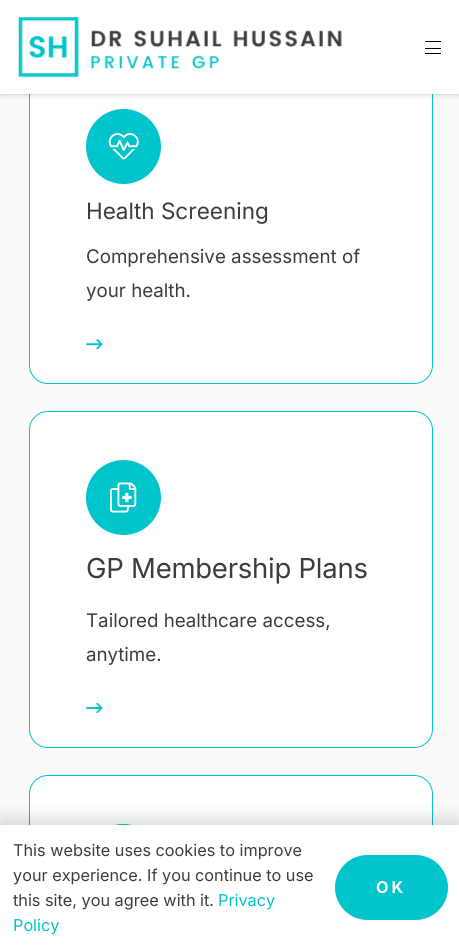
#include <cairo.h>
#include <math.h>
#include <stddef.h>


static void spaced_text(cairo_t *cr, double x, double y, const char *s, double letter, double word) {
    cairo_move_to(cr, x, y);
    while (*s) {
        char ch[5] = {0};
        int n = 0;
        do ch[n++] = *s++; while ((*s & 0xC0) == 0x80);
        cairo_show_text(cr, ch);
        cairo_rel_move_to(cr, letter + word * (*ch == ' '), 0);
    }
}

static void round_rect(cairo_t *cr, double x, double y, double w, double h, double r) {
    cairo_new_sub_path(cr);
    cairo_arc(cr, x + w - r, y + h - r, r, 0, M_PI / 2);
    cairo_arc(cr, x + r, y + h - r, r, M_PI / 2, M_PI);
    cairo_arc(cr, x + r, y + r, r, M_PI, 1.5 * M_PI);
    cairo_arc(cr, x + w - r, y + r, r, 1.5 * M_PI, 2 * M_PI);
    cairo_close_path(cr);
}

static void shadow(cairo_t *cr, double x, double y, double w, double h, double r, double blur, double alpha) {
    cairo_push_group_with_content(cr, CAIRO_CONTENT_ALPHA);
    cairo_set_operator(cr, CAIRO_OPERATOR_SOURCE);
    for (int i = 15; i >= -15 && fmin(w, h) + blur * i / 3 > 0; i -= 2) {
        double e = blur * i / 6;
        cairo_set_source_rgba(cr, 0, 0, 0, alpha * erfc((i - 1) / 8.5) / 2);
        round_rect(cr, x - e, y - e, w + 2 * e, h + 2 * e, fmax(0, fmin(r + e + blur * .6, fmin(w, h) / 2 + e)));
        cairo_fill(cr);
    }
    cairo_pattern_t *soft = cairo_pop_group(cr);
    cairo_mask(cr, soft);
    cairo_pattern_destroy(soft);
}

static void picture(cairo_t *cr, const char *path, double x, double y, double w, double h) {
    cairo_surface_t *image = cairo_image_surface_create_from_png(path);
    cairo_save(cr);
    cairo_set_source_surface(cr, image, x, y);
    cairo_rectangle(cr, x, y, w, h);
    cairo_fill(cr);
    cairo_restore(cr);
    cairo_surface_destroy(image);
}

int main(void) {
    cairo_surface_t *surface = cairo_image_surface_create(CAIRO_FORMAT_RGB24, 459, 949);
    cairo_t *cr = cairo_create(surface);
    cairo_font_options_t *options = cairo_font_options_create();
    cairo_font_options_set_hint_metrics(options, CAIRO_HINT_METRICS_OFF);
    cairo_font_options_set_hint_style(options, CAIRO_HINT_STYLE_NONE);
    cairo_set_font_options(cr, options);
    cairo_set_miter_limit(cr, 4);
    cairo_set_source_rgb(cr, 0.98, 0.98, 0.98);
    cairo_paint(cr);
    cairo_set_source_rgb(cr, 1, 1, 1);
    round_rect(cr, 29.5, 60.5, 403, 323, 18.5);
    cairo_fill_preserve(cr);
    cairo_set_source_rgb(cr, 0, 0.769, 0.8);
    cairo_set_line_width(cr, 1);
    cairo_stroke(cr);
    cairo_set_source_rgb(cr, 0, 0, 0);
    shadow(cr, 1, 4, 458, 91, 0, 0.5, 0.05);
    shadow(cr, 1, 5, 458, 91, 0, 3, 0.1);
    cairo_set_source_rgb(cr, 1, 1, 1);
    cairo_rectangle(cr, 0, 0, 459, 94);
    cairo_fill(cr);
    picture(cr, "img1.png", 18, 17, 324, 61);
    cairo_set_source_rgb(cr, 0, 0, 0);
    cairo_rectangle(cr, 425, 48, 16, 1);
    cairo_fill(cr);
    cairo_rectangle(cr, 425, 41, 16, 1);
    cairo_fill(cr);
    cairo_rectangle(cr, 425, 53, 16, 1);
    cairo_fill(cr);
    cairo_set_source_rgb(cr, 0, 0.769, 0.8);
    cairo_arc(cr, 123.5, 146.5, 37.5, 0, 2 * M_PI);
    cairo_fill(cr);
    picture(cr, "img2.png", 108, 133, 31, 27);
    cairo_select_font_face(cr, "Inter", CAIRO_FONT_SLANT_NORMAL, CAIRO_FONT_WEIGHT_NORMAL);
    cairo_set_font_size(cr, 22.5);
    cairo_set_source_rgb(cr, 0.224, 0.247, 0.251);
    cairo_move_to(cr, 86, 219);
    cairo_show_text(cr, "Health Screening");
    cairo_set_font_size(cr, 18.75);
    cairo_move_to(cr, 86, 263);
    cairo_show_text(cr, "Comprehensive assessment of");
    cairo_move_to(cr, 86, 297);
    cairo_show_text(cr, "your health.");
    picture(cr, "img3.png", 86, 339, 17, 11);
    cairo_set_source_rgb(cr, 1, 1, 1);
    round_rect(cr, 29.5, 411.5, 403, 336, 18.5);
    cairo_fill_preserve(cr);
    cairo_set_source_rgb(cr, 0, 0.769, 0.8);
    cairo_stroke(cr);
    cairo_arc(cr, 123.5, 497.5, 37.5, 0, 2 * M_PI);
    cairo_fill(cr);
    picture(cr, "img4.png", 110, 482, 27, 31);
    cairo_set_font_size(cr, 27.5);
    cairo_set_source_rgb(cr, 0.224, 0.247, 0.251);
    spaced_text(cr, 86, 578, "GP Membership Plans", -0.25, 0);
    cairo_set_font_size(cr, 18.75);
    cairo_move_to(cr, 86, 627);
    cairo_show_text(cr, "Tailored healthcare access,");
    cairo_move_to(cr, 86, 661);
    cairo_show_text(cr, "anytime.");
    picture(cr, "img5.png", 86, 702, 17, 12);
    cairo_set_source_rgb(cr, 1, 1, 1);
    round_rect(cr, 29.5, 775.5, 403, 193, 18.5);
    cairo_fill_preserve(cr);
    cairo_set_source_rgb(cr, 0, 0.769, 0.8);
    cairo_stroke(cr);
    cairo_arc(cr, 123.5, 861.5, 37.5, 0, 2 * M_PI);
    cairo_fill(cr);
    cairo_set_source_rgb(cr, 0, 0, 0);
    shadow(cr, 0, 819, 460, 125, 0, 9.5, 0.15);
    cairo_set_source_rgb(cr, 1, 1, 1);
    cairo_rectangle(cr, 0, 825, 459, 124);
    cairo_fill(cr);
    cairo_set_font_size(cr, 16.25);
    cairo_set_source_rgb(cr, 0.224, 0.247, 0.251);
    cairo_move_to(cr, 13, 856);
    cairo_show_text(cr, "This website uses cookies to improve");
    cairo_move_to(cr, 13, 881);
    cairo_show_text(cr, "your experience. If you continue to use");
    cairo_move_to(cr, 13, 906);
    cairo_show_text(cr, "this site, you agree with it.");
    cairo_set_source_rgb(cr, 0, 0.769, 0.8);
    cairo_move_to(cr, 218, 906);
    cairo_show_text(cr, "Privacy");
    cairo_move_to(cr, 13, 931);
    cairo_show_text(cr, "Policy");
    round_rect(cr, 335, 855, 113, 65, 32.5);
    cairo_fill(cr);
    cairo_select_font_face(cr, "Inter", CAIRO_FONT_SLANT_NORMAL, CAIRO_FONT_WEIGHT_BOLD);
    cairo_set_source_rgb(cr, 1, 1, 1);
    spaced_text(cr, 376, 893, "OK", 3, 0);
    cairo_surface_write_to_png(surface, "page.png");
    cairo_font_options_destroy(options);
    cairo_destroy(cr);
    cairo_surface_destroy(surface);
    return 0;
}
